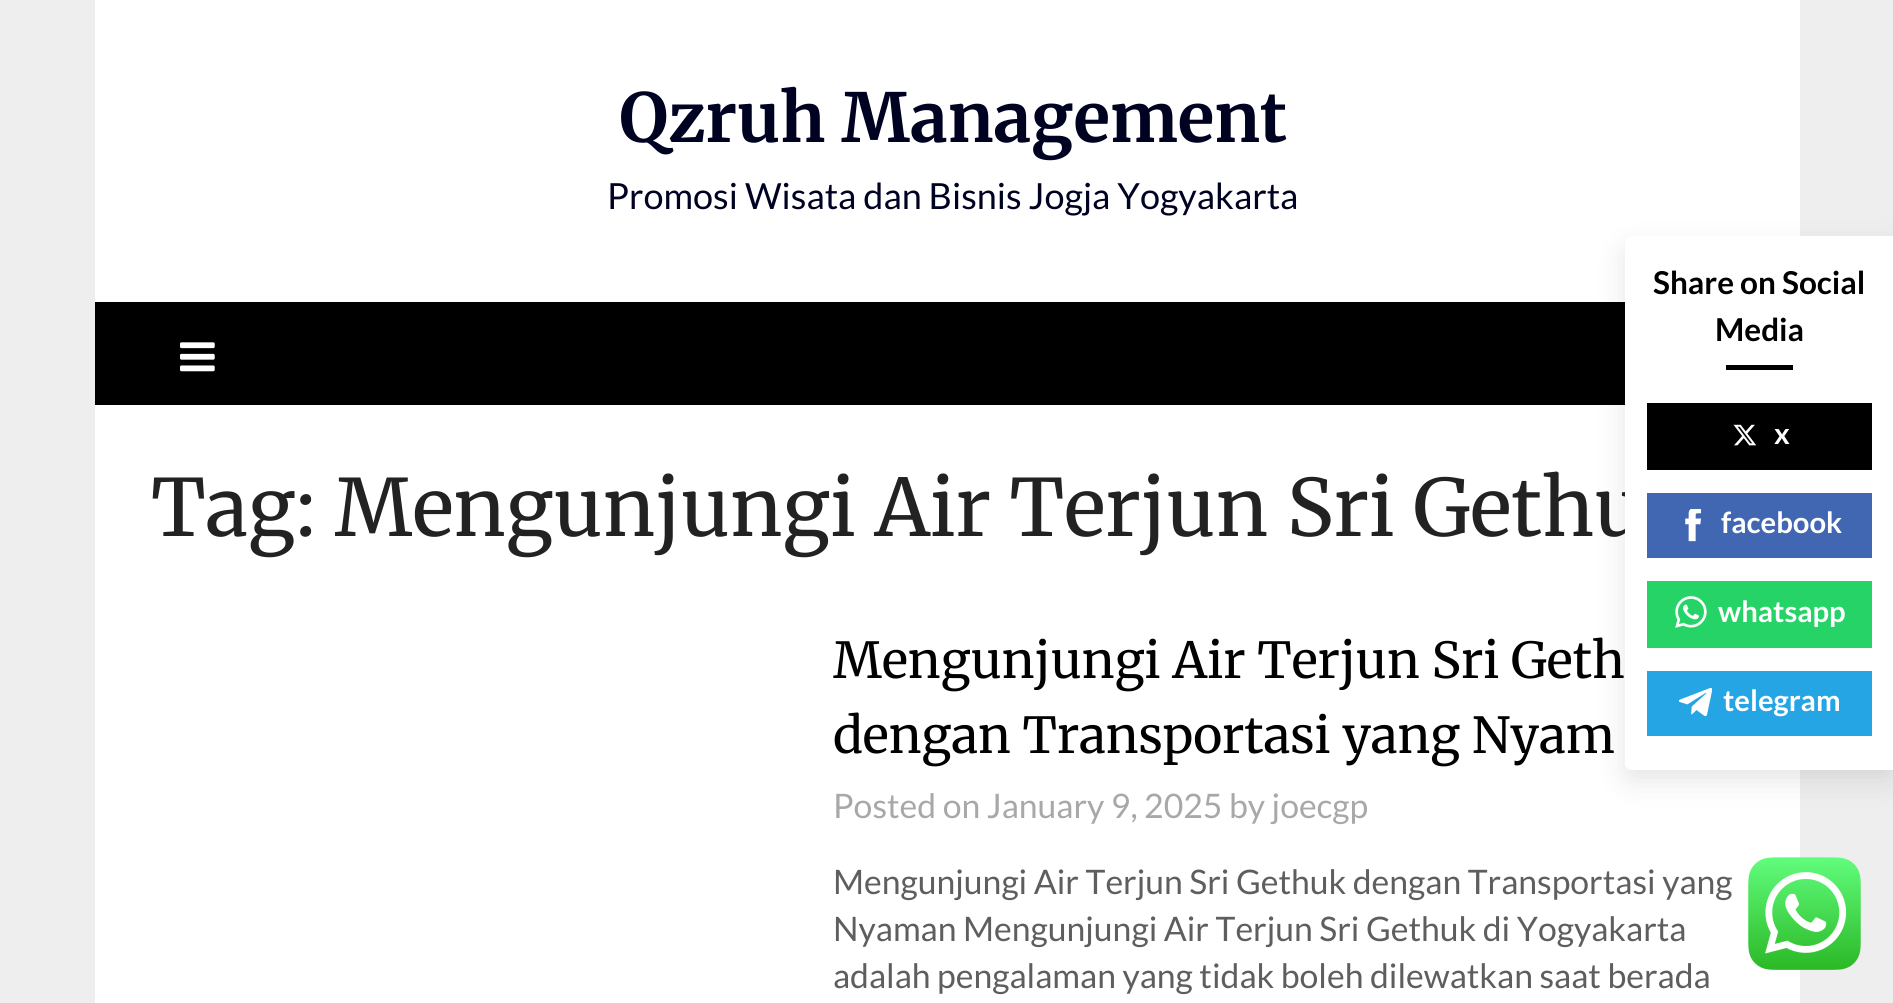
#include <cairo.h>
#include <math.h>
#include <stddef.h>


static void round_rect(cairo_t *cr, double x, double y, double w, double h, double r) {
    cairo_new_sub_path(cr);
    cairo_arc(cr, x + w - r, y + h - r, r, 0, M_PI / 2);
    cairo_arc(cr, x + r, y + h - r, r, M_PI / 2, M_PI);
    cairo_arc(cr, x + r, y + r, r, M_PI, 1.5 * M_PI);
    cairo_arc(cr, x + w - r, y + r, r, 1.5 * M_PI, 2 * M_PI);
    cairo_close_path(cr);
}

static void shadow(cairo_t *cr, double x, double y, double w, double h, double r, double blur, double alpha) {
    cairo_push_group_with_content(cr, CAIRO_CONTENT_ALPHA);
    cairo_set_operator(cr, CAIRO_OPERATOR_SOURCE);
    for (int i = 15; i >= -15 && fmin(w, h) + blur * i / 3 > 0; i -= 2) {
        double e = blur * i / 6;
        cairo_set_source_rgba(cr, 0, 0, 0, alpha * erfc((i - 1) / 8.5) / 2);
        round_rect(cr, x - e, y - e, w + 2 * e, h + 2 * e, fmax(0, fmin(r + e + blur * .6, fmin(w, h) / 2 + e)));
        cairo_fill(cr);
    }
    cairo_pattern_t *soft = cairo_pop_group(cr);
    cairo_mask(cr, soft);
    cairo_pattern_destroy(soft);
}

static void picture(cairo_t *cr, const char *path, double x, double y, double w, double h) {
    cairo_surface_t *image = cairo_image_surface_create_from_png(path);
    cairo_save(cr);
    cairo_set_source_surface(cr, image, x, y);
    cairo_rectangle(cr, x, y, w, h);
    cairo_fill(cr);
    cairo_restore(cr);
    cairo_surface_destroy(image);
}

int main(void) {
    cairo_surface_t *surface = cairo_image_surface_create(CAIRO_FORMAT_RGB24, 1893, 1003);
    cairo_t *cr = cairo_create(surface);
    cairo_font_options_t *options = cairo_font_options_create();
    cairo_font_options_set_hint_metrics(options, CAIRO_HINT_METRICS_OFF);
    cairo_font_options_set_hint_style(options, CAIRO_HINT_STYLE_NONE);
    cairo_set_font_options(cr, options);
    cairo_set_miter_limit(cr, 4);
    cairo_set_source_rgb(cr, 0.933, 0.933, 0.933);
    cairo_paint(cr);
    cairo_set_source_rgb(cr, 1, 1, 1);
    cairo_rectangle(cr, 95, 0, 1705, 302);
    cairo_fill(cr);
    cairo_select_font_face(cr, "Merriweather", CAIRO_FONT_SLANT_NORMAL, CAIRO_FONT_WEIGHT_BOLD);
    cairo_set_font_size(cr, 67.5);
    cairo_set_source_rgb(cr, 0, 0.008, 0.133);
    cairo_move_to(cr, 619, 142);
    cairo_show_text(cr, "Qzruh Management");
    cairo_select_font_face(cr, "Lato", CAIRO_FONT_SLANT_NORMAL, CAIRO_FONT_WEIGHT_NORMAL);
    cairo_set_font_size(cr, 36);
    cairo_move_to(cr, 607, 209);
    cairo_show_text(cr, "Promosi Wisata dan Bisnis Jogja Yogyakarta");
    cairo_set_source_rgb(cr, 0, 0, 0);
    cairo_rectangle(cr, 95, 302, 1530, 103);
    cairo_fill(cr);
    picture(cr, "img1.png", 180, 342, 35, 30);
    cairo_set_source_rgb(cr, 1, 1, 1);
    cairo_rectangle(cr, 95, 405, 1705, 598);
    cairo_fill(cr);
    cairo_select_font_face(cr, "Merriweather", CAIRO_FONT_SLANT_NORMAL, CAIRO_FONT_WEIGHT_NORMAL);
    cairo_set_font_size(cr, 78.75);
    cairo_set_source_rgb(cr, 0.133, 0.133, 0.133);
    cairo_move_to(cr, 151, 536);
    cairo_show_text(cr, "Tag: Mengunjungi Air Terjun Sri Gethu");
    cairo_set_font_size(cr, 49.5);
    cairo_set_source_rgb(cr, 0, 0, 0);
    cairo_move_to(cr, 833, 678);
    cairo_show_text(cr, "Mengunjungi Air Terjun Sri Geth");
    cairo_move_to(cr, 833, 753);
    cairo_show_text(cr, "dengan Transportasi yang Nyam");
    cairo_select_font_face(cr, "Lato", CAIRO_FONT_SLANT_NORMAL, CAIRO_FONT_WEIGHT_NORMAL);
    cairo_set_font_size(cr, 33.75);
    cairo_set_source_rgb(cr, 0.659, 0.659, 0.659);
    cairo_move_to(cr, 833, 818);
    cairo_show_text(cr, "Posted on January 9, 2025 by joecgp");
    cairo_set_source_rgb(cr, 0.369, 0.369, 0.369);
    cairo_move_to(cr, 833, 894);
    cairo_show_text(cr, "Mengunjungi Air Terjun Sri Gethuk dengan Transportasi yang");
    cairo_move_to(cr, 833, 941);
    cairo_show_text(cr, "Nyaman Mengunjungi Air Terjun Sri Gethuk di Yogyakarta");
    cairo_move_to(cr, 833, 988);
    cairo_show_text(cr, "adalah pengalaman yang tidak boleh dilewatkan saat berada");
    cairo_set_source_rgb(cr, 0, 0, 0);
    shadow(cr, 1625, 248, 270, 533, 7, 14.5, 0.1);
    cairo_set_source_rgb(cr, 1, 1, 1);
    cairo_new_path(cr);
    cairo_move_to(cr, 1632, 236);
    cairo_line_to(cr, 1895, 236);
    cairo_line_to(cr, 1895, 770);
    cairo_line_to(cr, 1632, 770);
    cairo_curve_to(cr, 1628, 770, 1625, 767, 1625, 763);
    cairo_line_to(cr, 1625, 243);
    cairo_curve_to(cr, 1625, 239, 1628, 236, 1632, 236);
    cairo_close_path(cr);
    cairo_fill(cr);
    cairo_select_font_face(cr, "Lato", CAIRO_FONT_SLANT_NORMAL, CAIRO_FONT_WEIGHT_BOLD);
    cairo_set_font_size(cr, 31.5);
    cairo_set_source_rgb(cr, 0, 0, 0);
    cairo_move_to(cr, 1653, 294);
    cairo_show_text(cr, "Share on Social");
    cairo_move_to(cr, 1715, 341);
    cairo_show_text(cr, "Media");
    cairo_rectangle(cr, 1726, 365, 67, 5);
    cairo_fill(cr);
    cairo_rectangle(cr, 1647, 403, 225, 67);
    cairo_fill(cr);
    picture(cr, "img2.png", 1733, 424, 24, 22);
    cairo_set_font_size(cr, 29.25);
    cairo_set_source_rgb(cr, 1, 1, 1);
    cairo_move_to(cr, 1774, 444);
    cairo_show_text(cr, "x");
    cairo_set_source_rgb(cr, 0.259, 0.404, 0.698);
    cairo_rectangle(cr, 1647, 493, 225, 65);
    cairo_fill(cr);
    picture(cr, "img3.png", 1685, 509, 16, 33);
    cairo_set_source_rgb(cr, 1, 1, 1);
    cairo_move_to(cr, 1721, 533);
    cairo_show_text(cr, "facebook");
    cairo_set_source_rgb(cr, 0.149, 0.827, 0.404);
    cairo_rectangle(cr, 1647, 581, 225, 67);
    cairo_fill(cr);
    picture(cr, "img4.png", 1675, 596, 32, 32);
    cairo_set_source_rgb(cr, 1, 1, 1);
    cairo_move_to(cr, 1718, 622);
    cairo_show_text(cr, "whatsapp");
    cairo_set_source_rgb(cr, 0.149, 0.647, 0.898);
    cairo_rectangle(cr, 1647, 671, 225, 65);
    cairo_fill(cr);
    picture(cr, "img5.png", 1679, 687, 33, 30);
    cairo_set_source_rgb(cr, 1, 1, 1);
    cairo_move_to(cr, 1723, 711);
    cairo_show_text(cr, "telegram");
    picture(cr, "img6.png", 1748, 857, 113, 113);
    cairo_surface_write_to_png(surface, "page.png");
    cairo_font_options_destroy(options);
    cairo_destroy(cr);
    cairo_surface_destroy(surface);
    return 0;
}
